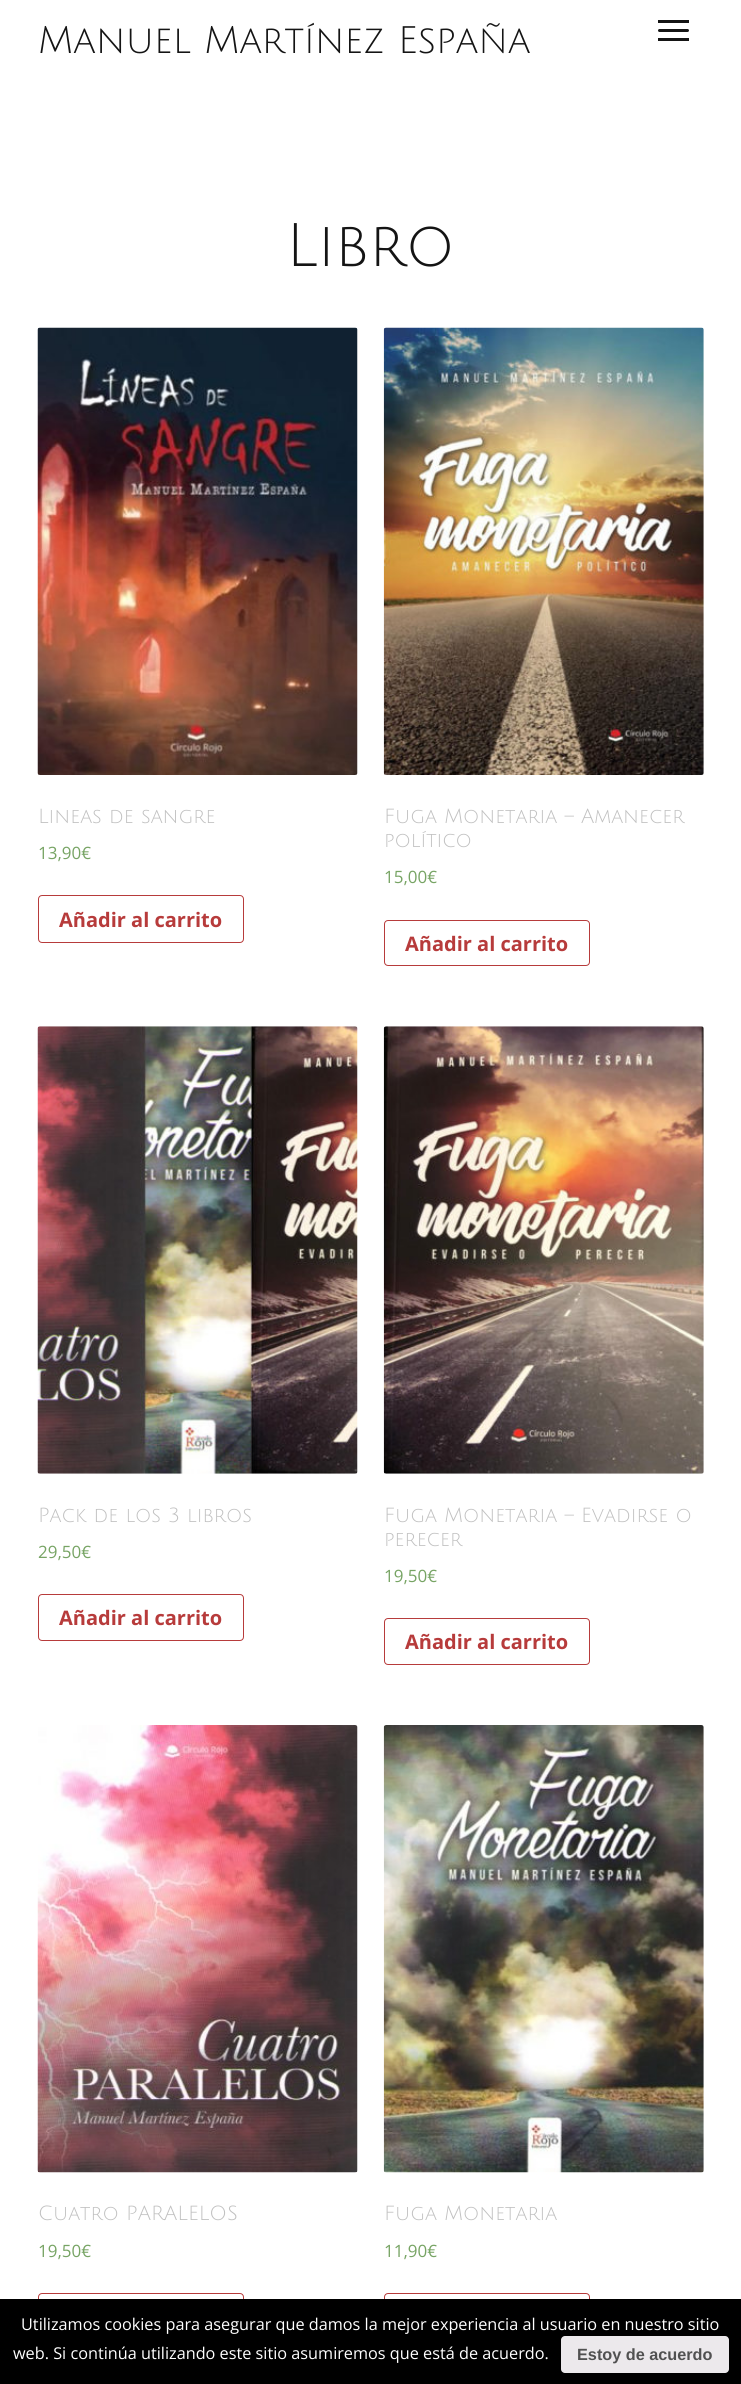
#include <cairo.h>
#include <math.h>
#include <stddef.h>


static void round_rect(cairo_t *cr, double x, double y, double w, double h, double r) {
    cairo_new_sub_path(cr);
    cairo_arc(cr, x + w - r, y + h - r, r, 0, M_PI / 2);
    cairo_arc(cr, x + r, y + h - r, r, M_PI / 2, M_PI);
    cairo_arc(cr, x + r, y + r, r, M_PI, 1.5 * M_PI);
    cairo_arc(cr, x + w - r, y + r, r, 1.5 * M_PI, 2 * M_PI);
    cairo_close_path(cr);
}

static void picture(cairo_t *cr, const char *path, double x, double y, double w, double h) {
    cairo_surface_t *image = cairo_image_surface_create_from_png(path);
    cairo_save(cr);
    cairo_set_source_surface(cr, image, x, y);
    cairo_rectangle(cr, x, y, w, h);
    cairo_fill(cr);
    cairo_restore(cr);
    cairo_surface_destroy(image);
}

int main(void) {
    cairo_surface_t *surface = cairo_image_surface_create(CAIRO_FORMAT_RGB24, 741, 2384);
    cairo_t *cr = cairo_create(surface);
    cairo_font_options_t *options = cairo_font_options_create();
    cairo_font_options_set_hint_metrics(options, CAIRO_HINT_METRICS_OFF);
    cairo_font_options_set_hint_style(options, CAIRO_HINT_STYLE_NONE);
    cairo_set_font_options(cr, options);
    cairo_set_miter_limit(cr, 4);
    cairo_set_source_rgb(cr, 1, 1, 1);
    cairo_paint(cr);
    cairo_select_font_face(cr, "Julius Sans One", CAIRO_FONT_SLANT_NORMAL, CAIRO_FONT_WEIGHT_NORMAL);
    cairo_set_font_size(cr, 37.5);
    cairo_set_source_rgb(cr, 0.082, 0.082, 0.082);
    cairo_move_to(cr, 38, 53);
    cairo_show_text(cr, "Manuel Martínez España");
    round_rect(cr, 658, 29, 31, 3, 1.5);
    cairo_fill(cr);
    cairo_rectangle(cr, 658, 20, 31, 3);
    cairo_fill(cr);
    cairo_rectangle(cr, 658, 38, 31, 3);
    cairo_fill(cr);
    cairo_set_font_size(cr, 60);
    cairo_move_to(cr, 286, 266);
    cairo_show_text(cr, "Libro");
    picture(cr, "img1.png", 37, 327, 321, 448);
    cairo_set_font_size(cr, 20);
    cairo_set_source_rgb(cr, 0.753, 0.753, 0.753);
    cairo_move_to(cr, 38, 823);
    cairo_show_text(cr, "Lineas de sangre");
    cairo_select_font_face(cr, "Open Sans", CAIRO_FONT_SLANT_NORMAL, CAIRO_FONT_WEIGHT_NORMAL);
    cairo_set_font_size(cr, 17);
    cairo_set_source_rgb(cr, 0.467, 0.643, 0.392);
    cairo_move_to(cr, 38, 859);
    cairo_show_text(cr, "13,90€");
    round_rect(cr, 38.5, 895.5, 205, 47, 3.5);
    cairo_set_source_rgb(cr, 0.718, 0.231, 0.231);
    cairo_set_line_width(cr, 1);
    cairo_stroke(cr);
    cairo_select_font_face(cr, "Open Sans", CAIRO_FONT_SLANT_NORMAL, CAIRO_FONT_WEIGHT_BOLD);
    cairo_set_font_size(cr, 20);
    cairo_move_to(cr, 59, 927);
    cairo_show_text(cr, "Añadir al carrito");
    picture(cr, "img2.png", 383, 327, 321, 448);
    cairo_select_font_face(cr, "Julius Sans One", CAIRO_FONT_SLANT_NORMAL, CAIRO_FONT_WEIGHT_NORMAL);
    cairo_set_source_rgb(cr, 0.753, 0.753, 0.753);
    cairo_move_to(cr, 384, 823);
    cairo_show_text(cr, "Fuga Monetaria – Amanecer");
    cairo_move_to(cr, 384, 847);
    cairo_show_text(cr, "político");
    cairo_select_font_face(cr, "Open Sans", CAIRO_FONT_SLANT_NORMAL, CAIRO_FONT_WEIGHT_NORMAL);
    cairo_set_font_size(cr, 17);
    cairo_set_source_rgb(cr, 0.467, 0.643, 0.392);
    cairo_move_to(cr, 384, 883);
    cairo_show_text(cr, "15,00€");
    round_rect(cr, 384.5, 920.5, 205, 45, 3.5);
    cairo_set_source_rgb(cr, 0.718, 0.231, 0.231);
    cairo_stroke(cr);
    cairo_select_font_face(cr, "Open Sans", CAIRO_FONT_SLANT_NORMAL, CAIRO_FONT_WEIGHT_BOLD);
    cairo_set_font_size(cr, 20);
    cairo_move_to(cr, 405, 951);
    cairo_show_text(cr, "Añadir al carrito");
    picture(cr, "img3.png", 37, 1026, 321, 448);
    cairo_select_font_face(cr, "Julius Sans One", CAIRO_FONT_SLANT_NORMAL, CAIRO_FONT_WEIGHT_NORMAL);
    cairo_set_source_rgb(cr, 0.753, 0.753, 0.753);
    cairo_move_to(cr, 38, 1522);
    cairo_show_text(cr, "Pack de los 3 libros");
    cairo_select_font_face(cr, "Open Sans", CAIRO_FONT_SLANT_NORMAL, CAIRO_FONT_WEIGHT_NORMAL);
    cairo_set_font_size(cr, 17);
    cairo_set_source_rgb(cr, 0.467, 0.643, 0.392);
    cairo_move_to(cr, 38, 1558);
    cairo_show_text(cr, "29,50€");
    round_rect(cr, 38.5, 1594.5, 205, 46, 3.5);
    cairo_set_source_rgb(cr, 0.718, 0.231, 0.231);
    cairo_stroke(cr);
    cairo_select_font_face(cr, "Open Sans", CAIRO_FONT_SLANT_NORMAL, CAIRO_FONT_WEIGHT_BOLD);
    cairo_set_font_size(cr, 20);
    cairo_move_to(cr, 59, 1625);
    cairo_show_text(cr, "Añadir al carrito");
    picture(cr, "img4.png", 383, 1026, 321, 448);
    cairo_select_font_face(cr, "Julius Sans One", CAIRO_FONT_SLANT_NORMAL, CAIRO_FONT_WEIGHT_NORMAL);
    cairo_set_source_rgb(cr, 0.753, 0.753, 0.753);
    cairo_move_to(cr, 384, 1522);
    cairo_show_text(cr, "Fuga Monetaria – Evadirse o");
    cairo_move_to(cr, 384, 1546);
    cairo_show_text(cr, "perecer");
    cairo_select_font_face(cr, "Open Sans", CAIRO_FONT_SLANT_NORMAL, CAIRO_FONT_WEIGHT_NORMAL);
    cairo_set_font_size(cr, 17);
    cairo_set_source_rgb(cr, 0.467, 0.643, 0.392);
    cairo_move_to(cr, 384, 1582);
    cairo_show_text(cr, "19,50€");
    round_rect(cr, 384.5, 1618.5, 205, 46, 3.5);
    cairo_set_source_rgb(cr, 0.718, 0.231, 0.231);
    cairo_stroke(cr);
    cairo_select_font_face(cr, "Open Sans", CAIRO_FONT_SLANT_NORMAL, CAIRO_FONT_WEIGHT_BOLD);
    cairo_set_font_size(cr, 20);
    cairo_move_to(cr, 405, 1649);
    cairo_show_text(cr, "Añadir al carrito");
    picture(cr, "img5.png", 37, 1725, 321, 448);
    cairo_select_font_face(cr, "Julius Sans One", CAIRO_FONT_SLANT_NORMAL, CAIRO_FONT_WEIGHT_NORMAL);
    cairo_set_source_rgb(cr, 0.753, 0.753, 0.753);
    cairo_move_to(cr, 38, 2220);
    cairo_show_text(cr, "Cuatro PARALELOS");
    cairo_select_font_face(cr, "Open Sans", CAIRO_FONT_SLANT_NORMAL, CAIRO_FONT_WEIGHT_NORMAL);
    cairo_set_font_size(cr, 17);
    cairo_set_source_rgb(cr, 0.467, 0.643, 0.392);
    cairo_move_to(cr, 38, 2257);
    cairo_show_text(cr, "19,50€");
    round_rect(cr, 38.5, 2293.5, 205, 46, 3.5);
    cairo_set_source_rgb(cr, 0.718, 0.231, 0.231);
    cairo_stroke(cr);
    picture(cr, "img6.png", 383, 1725, 321, 448);
    cairo_select_font_face(cr, "Julius Sans One", CAIRO_FONT_SLANT_NORMAL, CAIRO_FONT_WEIGHT_NORMAL);
    cairo_set_font_size(cr, 20);
    cairo_set_source_rgb(cr, 0.753, 0.753, 0.753);
    cairo_move_to(cr, 384, 2220);
    cairo_show_text(cr, "Fuga Monetaria");
    cairo_select_font_face(cr, "Open Sans", CAIRO_FONT_SLANT_NORMAL, CAIRO_FONT_WEIGHT_NORMAL);
    cairo_set_font_size(cr, 17);
    cairo_set_source_rgb(cr, 0.467, 0.643, 0.392);
    cairo_move_to(cr, 384, 2257);
    cairo_show_text(cr, "11,90€");
    round_rect(cr, 384.5, 2293.5, 205, 46, 3.5);
    cairo_set_source_rgb(cr, 0.718, 0.231, 0.231);
    cairo_stroke(cr);
    cairo_set_source_rgb(cr, 0, 0, 0);
    cairo_rectangle(cr, 0, 2299, 741, 85);
    cairo_fill(cr);
    cairo_set_font_size(cr, 16.25);
    cairo_set_source_rgb(cr, 1, 1, 1);
    cairo_move_to(cr, 21, 2330);
    cairo_show_text(cr, "Utilizamos cookies para asegurar que damos la mejor experiencia al usuario en nuestro sitio");
    cairo_move_to(cr, 13, 2359);
    cairo_show_text(cr, "web. Si continúa utilizando este sitio asumiremos que está de acuerdo.");
    cairo_set_source_rgb(cr, 0.922, 0.914, 0.922);
    round_rect(cr, 561, 2336, 168, 37, 4);
    cairo_fill(cr);
    cairo_select_font_face(cr, "Liberation Sans", CAIRO_FONT_SLANT_NORMAL, CAIRO_FONT_WEIGHT_BOLD);
    cairo_set_source_rgb(cr, 0.318, 0.318, 0.318);
    cairo_move_to(cr, 577, 2360);
    cairo_show_text(cr, "Estoy de acuerdo");
    cairo_surface_write_to_png(surface, "page.png");
    cairo_font_options_destroy(options);
    cairo_destroy(cr);
    cairo_surface_destroy(surface);
    return 0;
}
